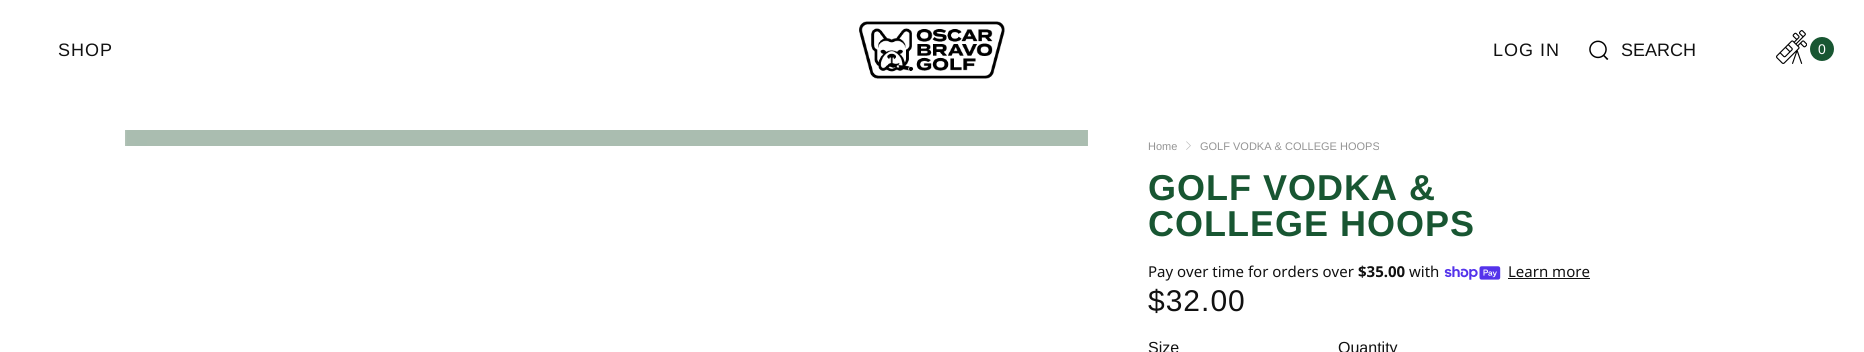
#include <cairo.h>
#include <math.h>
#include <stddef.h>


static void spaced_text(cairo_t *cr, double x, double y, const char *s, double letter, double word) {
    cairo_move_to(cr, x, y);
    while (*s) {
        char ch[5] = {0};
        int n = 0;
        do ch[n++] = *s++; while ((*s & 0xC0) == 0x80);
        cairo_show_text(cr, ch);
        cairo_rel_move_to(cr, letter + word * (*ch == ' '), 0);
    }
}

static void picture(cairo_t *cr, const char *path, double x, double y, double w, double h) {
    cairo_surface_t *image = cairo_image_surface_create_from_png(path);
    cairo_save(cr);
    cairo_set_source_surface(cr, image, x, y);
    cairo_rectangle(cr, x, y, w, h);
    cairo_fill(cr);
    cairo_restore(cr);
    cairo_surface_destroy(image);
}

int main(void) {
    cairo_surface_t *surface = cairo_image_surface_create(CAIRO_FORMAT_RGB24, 1864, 352);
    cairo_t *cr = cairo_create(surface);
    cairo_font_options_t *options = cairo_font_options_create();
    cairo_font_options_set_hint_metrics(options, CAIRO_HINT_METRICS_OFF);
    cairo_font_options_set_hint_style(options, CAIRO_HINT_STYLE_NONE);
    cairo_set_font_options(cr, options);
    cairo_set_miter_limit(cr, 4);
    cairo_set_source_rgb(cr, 1, 1, 1);
    cairo_paint(cr);
    picture(cr, "img1.png", 859, 21, 146, 58);
    cairo_select_font_face(cr, "Liberation Sans", CAIRO_FONT_SLANT_NORMAL, CAIRO_FONT_WEIGHT_NORMAL);
    cairo_set_font_size(cr, 18);
    cairo_set_source_rgb(cr, 0.067, 0.067, 0.067);
    spaced_text(cr, 58, 56, "SHOP", 1, 0);
    spaced_text(cr, 1493, 56, "LOG IN", 1, 0);
    picture(cr, "img2.png", 1589, 40, 20, 20);
    cairo_move_to(cr, 1621, 56);
    cairo_show_text(cr, "SEARCH");
    picture(cr, "img3.png", 1776, 30, 31, 34);
    cairo_set_source_rgb(cr, 0.094, 0.337, 0.196);
    cairo_arc(cr, 1822, 49, 12, 0, 2 * M_PI);
    cairo_fill(cr);
    cairo_set_font_size(cr, 14);
    cairo_set_source_rgb(cr, 1, 1, 1);
    spaced_text(cr, 1818, 54, "0", 1, 0);
    picture(cr, "img4.png", 125, 130, 963, 16);
    cairo_set_font_size(cr, 11);
    cairo_set_source_rgb(cr, 0.58, 0.58, 0.58);
    cairo_move_to(cr, 1148, 150);
    cairo_show_text(cr, "Home");
    picture(cr, "img5.png", 1186, 141, 5, 9);
    cairo_move_to(cr, 1200, 150);
    cairo_show_text(cr, "GOLF VODKA & COLLEGE HOOPS");
    cairo_select_font_face(cr, "Liberation Sans", CAIRO_FONT_SLANT_NORMAL, CAIRO_FONT_WEIGHT_BOLD);
    cairo_set_font_size(cr, 36);
    cairo_set_source_rgb(cr, 0.094, 0.337, 0.196);
    spaced_text(cr, 1148, 200, "GOLF VODKA &", 1, 0);
    spaced_text(cr, 1148, 236, "COLLEGE HOOPS", 1, 0);
    cairo_select_font_face(cr, "Noto Sans", CAIRO_FONT_SLANT_NORMAL, CAIRO_FONT_WEIGHT_NORMAL);
    cairo_set_font_size(cr, 15);
    cairo_set_source_rgb(cr, 0.067, 0.067, 0.067);
    cairo_move_to(cr, 1148, 277);
    cairo_show_text(cr, "Pay over time for orders over");
    cairo_select_font_face(cr, "Noto Sans", CAIRO_FONT_SLANT_NORMAL, CAIRO_FONT_WEIGHT_BOLD);
    cairo_move_to(cr, 1358, 277);
    cairo_show_text(cr, "$35.00");
    cairo_select_font_face(cr, "Noto Sans", CAIRO_FONT_SLANT_NORMAL, CAIRO_FONT_WEIGHT_NORMAL);
    cairo_move_to(cr, 1409, 277);
    cairo_show_text(cr, "with");
    picture(cr, "img6.png", 1444, 266, 57, 14);
    cairo_move_to(cr, 1508, 277);
    cairo_show_text(cr, "Learn more");
    cairo_rectangle(cr, 1508, 278, 82, 1);
    cairo_fill(cr);
    cairo_select_font_face(cr, "Liberation Sans", CAIRO_FONT_SLANT_NORMAL, CAIRO_FONT_WEIGHT_NORMAL);
    cairo_set_font_size(cr, 30);
    spaced_text(cr, 1148, 311, "$32.00", 1, 0);
    cairo_set_font_size(cr, 16);
    cairo_move_to(cr, 1148, 353);
    cairo_show_text(cr, "Size");
    cairo_move_to(cr, 1338, 353);
    cairo_show_text(cr, "Quantity");
    cairo_surface_write_to_png(surface, "page.png");
    cairo_font_options_destroy(options);
    cairo_destroy(cr);
    cairo_surface_destroy(surface);
    return 0;
}
